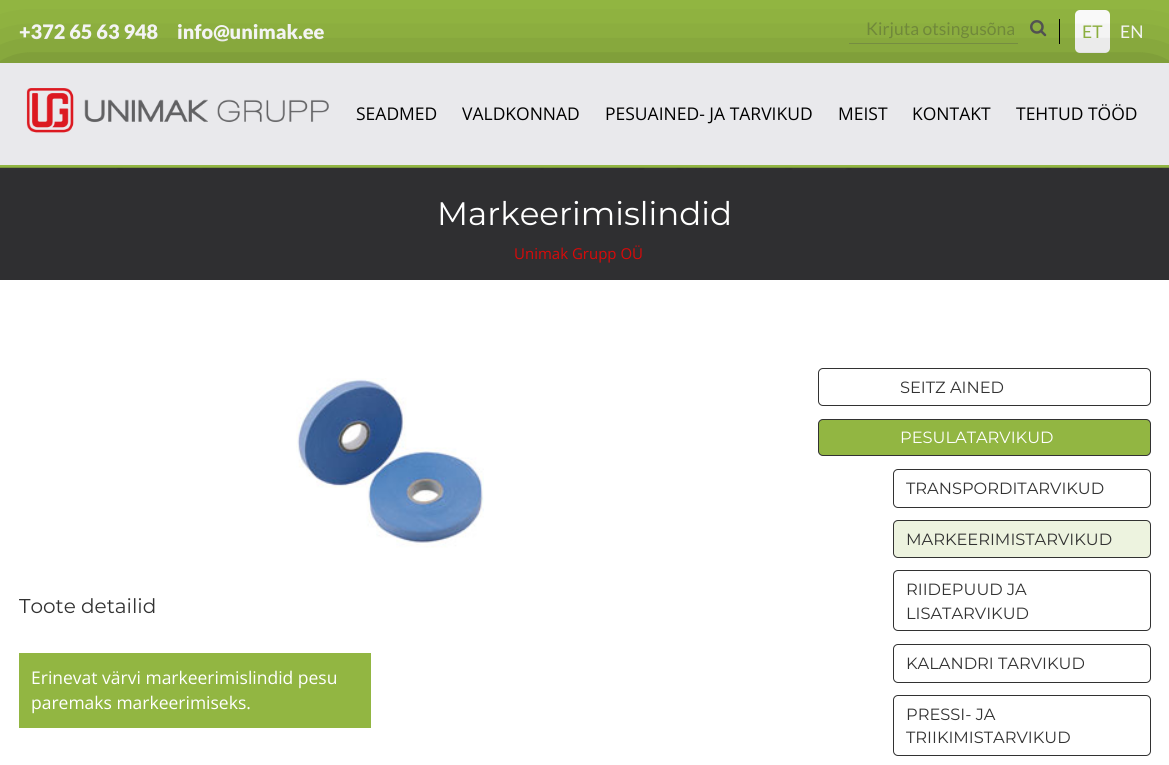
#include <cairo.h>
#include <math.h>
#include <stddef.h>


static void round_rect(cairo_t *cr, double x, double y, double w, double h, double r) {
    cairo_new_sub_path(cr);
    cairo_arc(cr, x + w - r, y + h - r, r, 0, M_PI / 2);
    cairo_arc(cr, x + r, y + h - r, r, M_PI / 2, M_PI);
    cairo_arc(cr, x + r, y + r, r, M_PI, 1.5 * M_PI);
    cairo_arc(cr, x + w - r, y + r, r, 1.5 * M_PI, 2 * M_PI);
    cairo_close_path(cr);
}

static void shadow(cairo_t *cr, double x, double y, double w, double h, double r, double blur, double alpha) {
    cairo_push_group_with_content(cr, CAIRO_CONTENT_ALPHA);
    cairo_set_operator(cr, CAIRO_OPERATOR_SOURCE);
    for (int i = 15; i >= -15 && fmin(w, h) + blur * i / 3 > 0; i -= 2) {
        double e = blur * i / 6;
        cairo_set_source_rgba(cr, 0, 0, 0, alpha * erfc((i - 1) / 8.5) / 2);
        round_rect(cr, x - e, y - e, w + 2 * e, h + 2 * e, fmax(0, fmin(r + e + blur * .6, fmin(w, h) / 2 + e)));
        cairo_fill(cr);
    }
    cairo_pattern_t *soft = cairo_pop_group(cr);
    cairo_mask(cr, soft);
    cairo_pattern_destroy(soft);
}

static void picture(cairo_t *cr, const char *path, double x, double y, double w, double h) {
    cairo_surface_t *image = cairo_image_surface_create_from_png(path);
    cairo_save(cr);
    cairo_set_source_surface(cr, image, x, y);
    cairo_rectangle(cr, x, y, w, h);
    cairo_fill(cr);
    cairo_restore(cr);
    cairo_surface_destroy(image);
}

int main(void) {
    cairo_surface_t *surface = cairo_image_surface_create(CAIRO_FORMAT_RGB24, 1169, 765);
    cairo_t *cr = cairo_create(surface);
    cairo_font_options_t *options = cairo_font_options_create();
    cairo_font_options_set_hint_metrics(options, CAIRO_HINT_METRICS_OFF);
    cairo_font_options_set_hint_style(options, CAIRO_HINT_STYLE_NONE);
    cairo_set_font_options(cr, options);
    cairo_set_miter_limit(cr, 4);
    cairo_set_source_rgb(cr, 0.573, 0.714, 0.259);
    cairo_paint(cr);
    cairo_select_font_face(cr, "Lato Black", CAIRO_FONT_SLANT_NORMAL, CAIRO_FONT_WEIGHT_NORMAL);
    cairo_set_font_size(cr, 20);
    cairo_set_source_rgb(cr, 1, 1, 1);
    cairo_move_to(cr, 19, 39);
    cairo_show_text(cr, "+372 65 63 948");
    cairo_move_to(cr, 177, 39);
    cairo_show_text(cr, "info@unimak.ee");
    cairo_set_source_rgb(cr, 0, 0, 0);
    cairo_rectangle(cr, 1059, 19, 1, 25);
    cairo_fill(cr);
    cairo_set_source_rgb(cr, 0.498, 0.6, 0.278);
    cairo_rectangle(cr, 849, 43, 169, 1);
    cairo_fill(cr);
    cairo_select_font_face(cr, "Lato", CAIRO_FONT_SLANT_NORMAL, CAIRO_FONT_WEIGHT_NORMAL);
    cairo_set_font_size(cr, 17.5);
    cairo_set_source_rgb(cr, 0.459, 0.557, 0.239);
    cairo_move_to(cr, 866, 35);
    cairo_show_text(cr, "Kirjuta otsingusõna");
    picture(cr, "img1.png", 1030, 20, 17, 17);
    cairo_set_source_rgb(cr, 1, 1, 1);
    round_rect(cr, 1075, 10, 35, 43, 5);
    cairo_fill(cr);
    cairo_set_source_rgb(cr, 0.573, 0.714, 0.259);
    cairo_move_to(cr, 1082, 38);
    cairo_show_text(cr, "ET");
    cairo_set_source_rgb(cr, 1, 1, 1);
    cairo_move_to(cr, 1120, 38);
    cairo_show_text(cr, "EN");
    cairo_set_source_rgb(cr, 0, 0, 0);
    shadow(cr, 6, 88, 1158, 55, 0, 43, 0.5);
    cairo_set_source_rgb(cr, 0.914, 0.914, 0.925);
    cairo_rectangle(cr, 0, 63, 1169, 102);
    cairo_fill(cr);
    cairo_set_source_rgb(cr, 0.573, 0.714, 0.259);
    cairo_rectangle(cr, 0, 165, 1169, 3);
    cairo_fill(cr);
    picture(cr, "img2.png", 26, 88, 303, 45);
    cairo_select_font_face(cr, "Open Sans", CAIRO_FONT_SLANT_NORMAL, CAIRO_FONT_WEIGHT_NORMAL);
    cairo_set_source_rgb(cr, 0, 0, 0);
    cairo_move_to(cr, 356, 120);
    cairo_show_text(cr, "SEADMED");
    cairo_move_to(cr, 462, 120);
    cairo_show_text(cr, "VALDKONNAD");
    cairo_move_to(cr, 605, 120);
    cairo_show_text(cr, "PESUAINED- JA TARVIKUD");
    cairo_move_to(cr, 838, 120);
    cairo_show_text(cr, "MEIST");
    cairo_move_to(cr, 912, 120);
    cairo_show_text(cr, "KONTAKT");
    cairo_move_to(cr, 1016, 120);
    cairo_show_text(cr, "TEHTUD TÖÖD");
    cairo_set_source_rgb(cr, 1, 1, 1);
    cairo_rectangle(cr, 0, 280, 1169, 485);
    cairo_fill(cr);
    cairo_set_source_rgb(cr, 0.184, 0.184, 0.192);
    cairo_rectangle(cr, 0, 170, 1169, 110);
    cairo_fill(cr);
    picture(cr, "img3.png", 0, 167, 1169, 3);
    cairo_select_font_face(cr, "Montserrat", CAIRO_FONT_SLANT_NORMAL, CAIRO_FONT_WEIGHT_NORMAL);
    cairo_set_font_size(cr, 32.5);
    cairo_set_source_rgb(cr, 1, 1, 1);
    cairo_move_to(cr, 437, 225);
    cairo_show_text(cr, "Markeerimislindid");
    cairo_select_font_face(cr, "Open Sans", CAIRO_FONT_SLANT_NORMAL, CAIRO_FONT_WEIGHT_NORMAL);
    cairo_set_font_size(cr, 15);
    cairo_set_source_rgb(cr, 0.855, 0.039, 0.039);
    cairo_move_to(cr, 514, 259);
    cairo_show_text(cr, "Unimak Grupp OÜ");
    picture(cr, "img4.png", 296, 378, 188, 170);
    cairo_select_font_face(cr, "Montserrat", CAIRO_FONT_SLANT_NORMAL, CAIRO_FONT_WEIGHT_NORMAL);
    cairo_set_font_size(cr, 20);
    cairo_set_source_rgb(cr, 0.196, 0.196, 0.196);
    cairo_move_to(cr, 19, 613);
    cairo_show_text(cr, "Toote detailid");
    cairo_set_source_rgb(cr, 0.573, 0.714, 0.259);
    cairo_rectangle(cr, 19, 653, 352, 75);
    cairo_fill(cr);
    cairo_select_font_face(cr, "Open Sans", CAIRO_FONT_SLANT_NORMAL, CAIRO_FONT_WEIGHT_NORMAL);
    cairo_set_font_size(cr, 17.5);
    cairo_set_source_rgb(cr, 1, 1, 1);
    cairo_move_to(cr, 31, 684);
    cairo_show_text(cr, "Erinevat värvi markeerimislindid pesu");
    cairo_move_to(cr, 31, 709);
    cairo_show_text(cr, "paremaks markeerimiseks.");
    round_rect(cr, 818.5, 368.5, 332, 37, 4.5);
    cairo_set_source_rgb(cr, 0.196, 0.196, 0.196);
    cairo_set_line_width(cr, 1);
    cairo_stroke(cr);
    cairo_select_font_face(cr, "Montserrat", CAIRO_FONT_SLANT_NORMAL, CAIRO_FONT_WEIGHT_NORMAL);
    cairo_set_font_size(cr, 16.25);
    cairo_move_to(cr, 900, 393);
    cairo_show_text(cr, "SEITZ AINED");
    cairo_set_source_rgb(cr, 0.573, 0.714, 0.259);
    round_rect(cr, 818.5, 419.5, 332, 36, 4.5);
    cairo_fill_preserve(cr);
    cairo_set_source_rgb(cr, 0.196, 0.196, 0.196);
    cairo_stroke(cr);
    cairo_set_source_rgb(cr, 1, 1, 1);
    cairo_move_to(cr, 900, 443);
    cairo_show_text(cr, "PESULATARVIKUD");
    round_rect(cr, 893.5, 469.5, 257, 38, 4.5);
    cairo_set_source_rgb(cr, 0.196, 0.196, 0.196);
    cairo_stroke(cr);
    cairo_move_to(cr, 906, 494);
    cairo_show_text(cr, "TRANSPORDITARVIKUD");
    cairo_set_source_rgb(cr, 0.929, 0.953, 0.875);
    round_rect(cr, 893.5, 520.5, 257, 37, 4.5);
    cairo_fill_preserve(cr);
    cairo_set_source_rgb(cr, 0.196, 0.196, 0.196);
    cairo_stroke(cr);
    cairo_move_to(cr, 906, 545);
    cairo_show_text(cr, "MARKEERIMISTARVIKUD");
    round_rect(cr, 893.5, 570.5, 257, 60, 4.5);
    cairo_stroke(cr);
    cairo_move_to(cr, 906, 595);
    cairo_show_text(cr, "RIIDEPUUD JA");
    cairo_move_to(cr, 906, 619);
    cairo_show_text(cr, "LISATARVIKUD");
    round_rect(cr, 893.5, 644.5, 257, 38, 4.5);
    cairo_stroke(cr);
    cairo_move_to(cr, 906, 669);
    cairo_show_text(cr, "KALANDRI TARVIKUD");
    round_rect(cr, 893.5, 695.5, 257, 60, 4.5);
    cairo_stroke(cr);
    cairo_move_to(cr, 906, 720);
    cairo_show_text(cr, "PRESSI- JA");
    cairo_move_to(cr, 906, 743);
    cairo_show_text(cr, "TRIIKIMISTARVIKUD");
    cairo_surface_write_to_png(surface, "page.png");
    cairo_font_options_destroy(options);
    cairo_destroy(cr);
    cairo_surface_destroy(surface);
    return 0;
}
